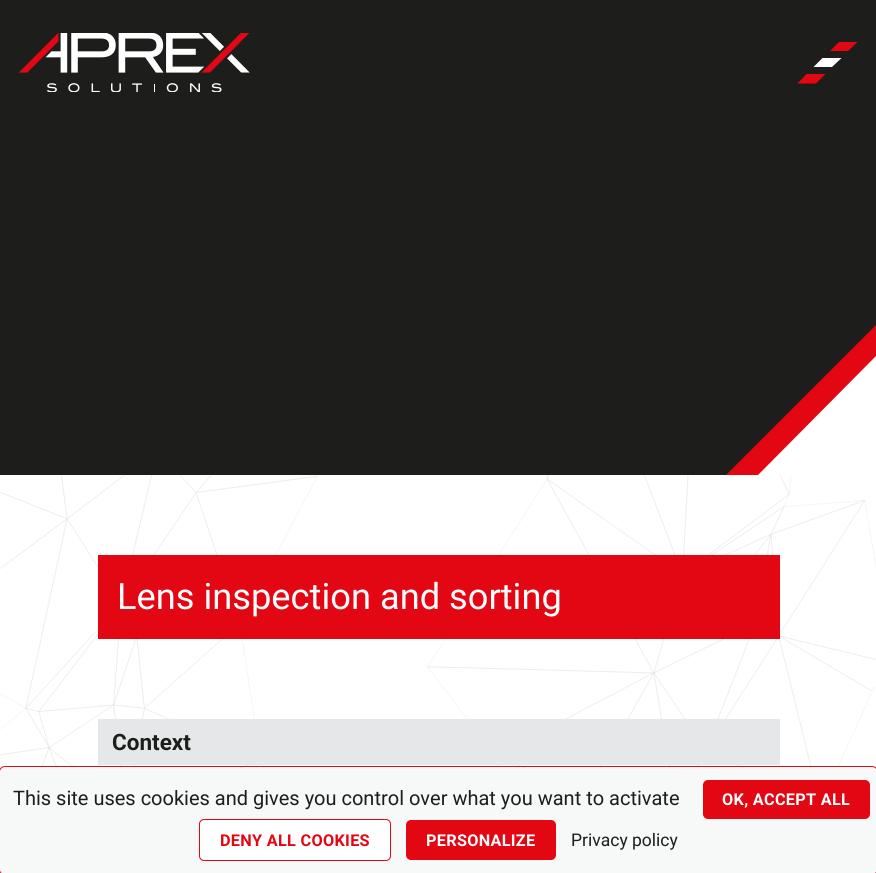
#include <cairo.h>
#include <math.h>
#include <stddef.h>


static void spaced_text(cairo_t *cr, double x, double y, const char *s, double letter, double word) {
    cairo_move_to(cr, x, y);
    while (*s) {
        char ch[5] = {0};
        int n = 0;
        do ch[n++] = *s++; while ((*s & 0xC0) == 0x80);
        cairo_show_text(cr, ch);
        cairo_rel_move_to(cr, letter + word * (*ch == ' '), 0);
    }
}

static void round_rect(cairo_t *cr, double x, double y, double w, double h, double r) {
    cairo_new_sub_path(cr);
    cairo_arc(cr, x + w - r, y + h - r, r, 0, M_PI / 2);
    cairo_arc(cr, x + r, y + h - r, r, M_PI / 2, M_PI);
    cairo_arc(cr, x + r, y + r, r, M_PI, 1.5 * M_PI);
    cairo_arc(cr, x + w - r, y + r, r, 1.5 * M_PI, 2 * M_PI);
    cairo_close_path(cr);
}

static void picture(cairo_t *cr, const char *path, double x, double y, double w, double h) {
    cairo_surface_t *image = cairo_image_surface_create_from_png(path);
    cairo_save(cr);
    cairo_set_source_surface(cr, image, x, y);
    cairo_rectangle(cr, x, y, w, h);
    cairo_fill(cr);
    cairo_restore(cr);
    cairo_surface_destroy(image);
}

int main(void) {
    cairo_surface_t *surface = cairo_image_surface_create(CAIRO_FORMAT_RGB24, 876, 873);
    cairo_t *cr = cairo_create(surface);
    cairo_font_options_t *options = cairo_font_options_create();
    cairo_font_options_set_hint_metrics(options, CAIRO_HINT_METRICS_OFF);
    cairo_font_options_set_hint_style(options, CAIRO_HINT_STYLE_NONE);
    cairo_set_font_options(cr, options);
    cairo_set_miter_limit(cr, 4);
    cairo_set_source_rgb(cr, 1, 1, 1);
    cairo_paint(cr);
    picture(cr, "img1.png", 0, 475, 876, 293);
    cairo_set_source_rgb(cr, 0.114, 0.114, 0.106);
    cairo_rectangle(cr, 0, 0, 876, 125);
    cairo_fill(cr);
    picture(cr, "img2.png", 19, 33, 231, 59);
    cairo_set_source_rgb(cr, 0.89, 0.024, 0.075);
    cairo_new_path(cr);
    cairo_move_to(cr, 806.5, 74);
    cairo_line_to(cr, 825.5, 74);
    cairo_line_to(cr, 816, 83.5);
    cairo_line_to(cr, 797.5, 83.5);
    cairo_close_path(cr);
    cairo_fill(cr);
    cairo_set_source_rgb(cr, 1, 1, 1);
    cairo_new_path(cr);
    cairo_move_to(cr, 822.5, 58);
    cairo_line_to(cr, 841.5, 58);
    cairo_line_to(cr, 832, 67);
    cairo_line_to(cr, 813.5, 67);
    cairo_close_path(cr);
    cairo_fill(cr);
    cairo_set_source_rgb(cr, 0.89, 0.024, 0.075);
    cairo_new_path(cr);
    cairo_move_to(cr, 839, 42);
    cairo_line_to(cr, 857.5, 42);
    cairo_line_to(cr, 848, 51);
    cairo_line_to(cr, 830, 51);
    cairo_close_path(cr);
    cairo_fill(cr);
    picture(cr, "img3.png", 0, 125, 876, 350);
    cairo_new_path(cr);
    cairo_move_to(cr, 876, 475);
    cairo_line_to(cr, 726, 475);
    cairo_line_to(cr, 876, 325);
    cairo_close_path(cr);
    cairo_fill(cr);
    cairo_set_source_rgb(cr, 1, 1, 1);
    cairo_new_path(cr);
    cairo_move_to(cr, 876, 475);
    cairo_line_to(cr, 758, 475);
    cairo_line_to(cr, 876, 356);
    cairo_close_path(cr);
    cairo_fill(cr);
    cairo_set_source_rgb(cr, 0.89, 0.024, 0.075);
    cairo_rectangle(cr, 98, 555, 682, 84);
    cairo_fill(cr);
    cairo_select_font_face(cr, "Roboto", CAIRO_FONT_SLANT_NORMAL, CAIRO_FONT_WEIGHT_NORMAL);
    cairo_set_font_size(cr, 36.25);
    cairo_set_source_rgb(cr, 1, 1, 1);
    cairo_move_to(cr, 117, 609);
    cairo_show_text(cr, "Lens inspection and sorting");
    cairo_set_source_rgb(cr, 0.898, 0.906, 0.914);
    cairo_rectangle(cr, 98, 719, 682, 46);
    cairo_fill(cr);
    cairo_select_font_face(cr, "Roboto", CAIRO_FONT_SLANT_NORMAL, CAIRO_FONT_WEIGHT_BOLD);
    cairo_set_font_size(cr, 22.5);
    cairo_set_source_rgb(cr, 0.114, 0.114, 0.106);
    cairo_move_to(cr, 112, 750);
    cairo_show_text(cr, "Context");
    round_rect(cr, -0.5, 766.5, 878, 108, 5.5);
    cairo_set_source_rgb(cr, 0.89, 0.024, 0.075);
    cairo_set_line_width(cr, 1);
    cairo_stroke(cr);
    cairo_set_source_rgb(cr, 0.965, 0.969, 0.969);
    round_rect(cr, 0, 768, 876, 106, 5);
    cairo_fill(cr);
    cairo_select_font_face(cr, "Roboto", CAIRO_FONT_SLANT_NORMAL, CAIRO_FONT_WEIGHT_NORMAL);
    cairo_set_font_size(cr, 20);
    cairo_set_source_rgb(cr, 0.114, 0.114, 0.106);
    cairo_move_to(cr, 13, 805);
    cairo_show_text(cr, "This site uses cookies and gives you control over what you want to activate");
    cairo_set_source_rgb(cr, 0.89, 0.024, 0.075);
    round_rect(cr, 703, 780, 167, 39, 5);
    cairo_fill(cr);
    cairo_select_font_face(cr, "Roboto", CAIRO_FONT_SLANT_NORMAL, CAIRO_FONT_WEIGHT_BOLD);
    cairo_set_font_size(cr, 16.25);
    cairo_set_source_rgb(cr, 1, 1, 1);
    spaced_text(cr, 722, 805, "OK, ACCEPT ALL", 0.3, 0);
    round_rect(cr, 199.5, 819.5, 191, 41, 4.5);
    cairo_fill_preserve(cr);
    cairo_set_source_rgb(cr, 0.89, 0.024, 0.075);
    cairo_stroke(cr);
    spaced_text(cr, 220, 846, "DENY ALL COOKIES", 0.3, 0);
    round_rect(cr, 406, 820, 150, 40, 5);
    cairo_fill(cr);
    cairo_set_source_rgb(cr, 1, 1, 1);
    spaced_text(cr, 426, 846, "PERSONALIZE", 0.3, 0);
    cairo_select_font_face(cr, "Roboto", CAIRO_FONT_SLANT_NORMAL, CAIRO_FONT_WEIGHT_NORMAL);
    cairo_set_font_size(cr, 17.5);
    cairo_set_source_rgb(cr, 0.114, 0.114, 0.106);
    cairo_move_to(cr, 571, 846);
    cairo_show_text(cr, "Privacy policy");
    cairo_surface_write_to_png(surface, "page.png");
    cairo_font_options_destroy(options);
    cairo_destroy(cr);
    cairo_surface_destroy(surface);
    return 0;
}
